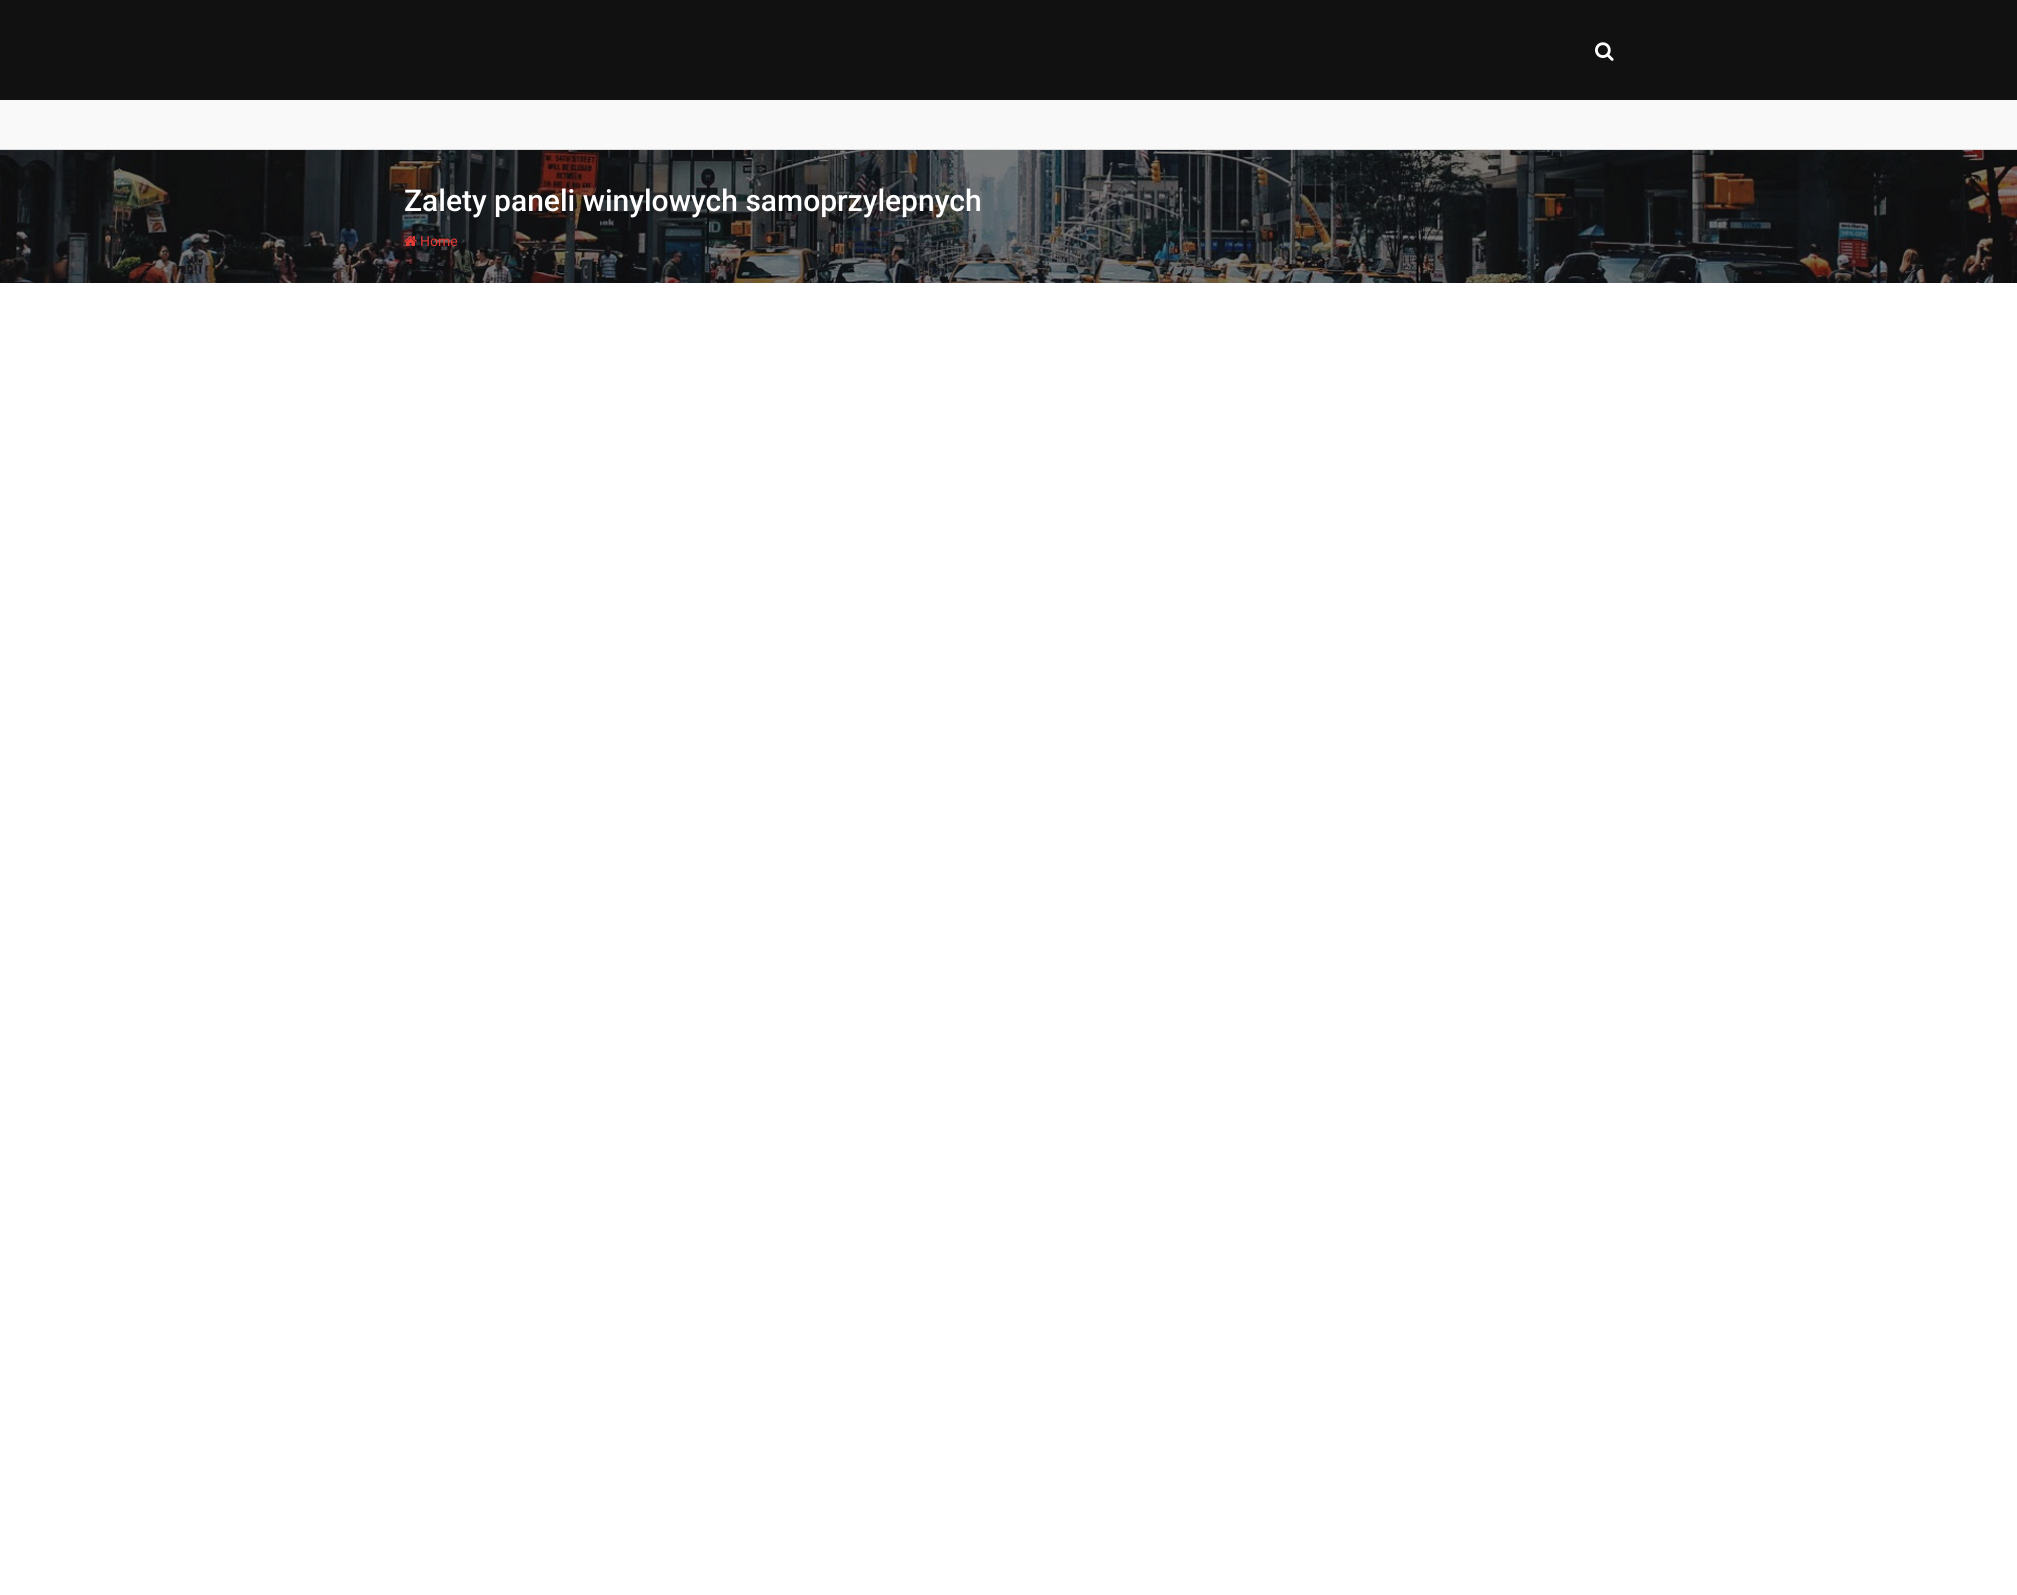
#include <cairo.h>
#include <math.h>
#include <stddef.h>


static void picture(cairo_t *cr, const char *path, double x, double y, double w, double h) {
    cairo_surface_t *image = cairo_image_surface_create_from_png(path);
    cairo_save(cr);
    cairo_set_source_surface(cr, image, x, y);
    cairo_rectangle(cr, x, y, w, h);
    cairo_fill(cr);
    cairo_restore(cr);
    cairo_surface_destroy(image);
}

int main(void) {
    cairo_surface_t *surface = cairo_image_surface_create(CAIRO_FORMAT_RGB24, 2017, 1595);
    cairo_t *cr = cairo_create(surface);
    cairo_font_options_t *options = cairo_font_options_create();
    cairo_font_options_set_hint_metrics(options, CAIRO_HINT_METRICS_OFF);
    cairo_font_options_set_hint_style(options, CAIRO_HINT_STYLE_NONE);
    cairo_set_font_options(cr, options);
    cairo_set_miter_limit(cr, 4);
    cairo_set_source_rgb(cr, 1, 1, 1);
    cairo_paint(cr);
    cairo_set_source_rgb(cr, 0.067, 0.067, 0.067);
    cairo_rectangle(cr, 0, 0, 2017, 100);
    cairo_fill(cr);
    picture(cr, "img1.png", 1595, 42, 19, 19);
    cairo_set_source_rgb(cr, 0.973, 0.973, 0.973);
    cairo_rectangle(cr, 0, 100, 2017, 49);
    cairo_fill(cr);
    cairo_set_source_rgb(cr, 0.855, 0.855, 0.855);
    cairo_rectangle(cr, 0, 149, 2017, 1);
    cairo_fill(cr);
    picture(cr, "img2.png", 0, 150, 2017, 133);
    cairo_select_font_face(cr, "Roboto Medium", CAIRO_FONT_SLANT_NORMAL, CAIRO_FONT_WEIGHT_NORMAL);
    cairo_set_font_size(cr, 30);
    cairo_set_source_rgb(cr, 1, 1, 1);
    cairo_move_to(cr, 404, 211);
    cairo_show_text(cr, "Zalety paneli winylowych samoprzylepnych");
    picture(cr, "img3.png", 404, 236, 13, 10);
    cairo_select_font_face(cr, "Roboto", CAIRO_FONT_SLANT_NORMAL, CAIRO_FONT_WEIGHT_NORMAL);
    cairo_set_font_size(cr, 14);
    cairo_set_source_rgb(cr, 0.898, 0.224, 0.208);
    cairo_move_to(cr, 420, 246);
    cairo_show_text(cr, "Home");
    cairo_surface_write_to_png(surface, "page.png");
    cairo_font_options_destroy(options);
    cairo_destroy(cr);
    cairo_surface_destroy(surface);
    return 0;
}
